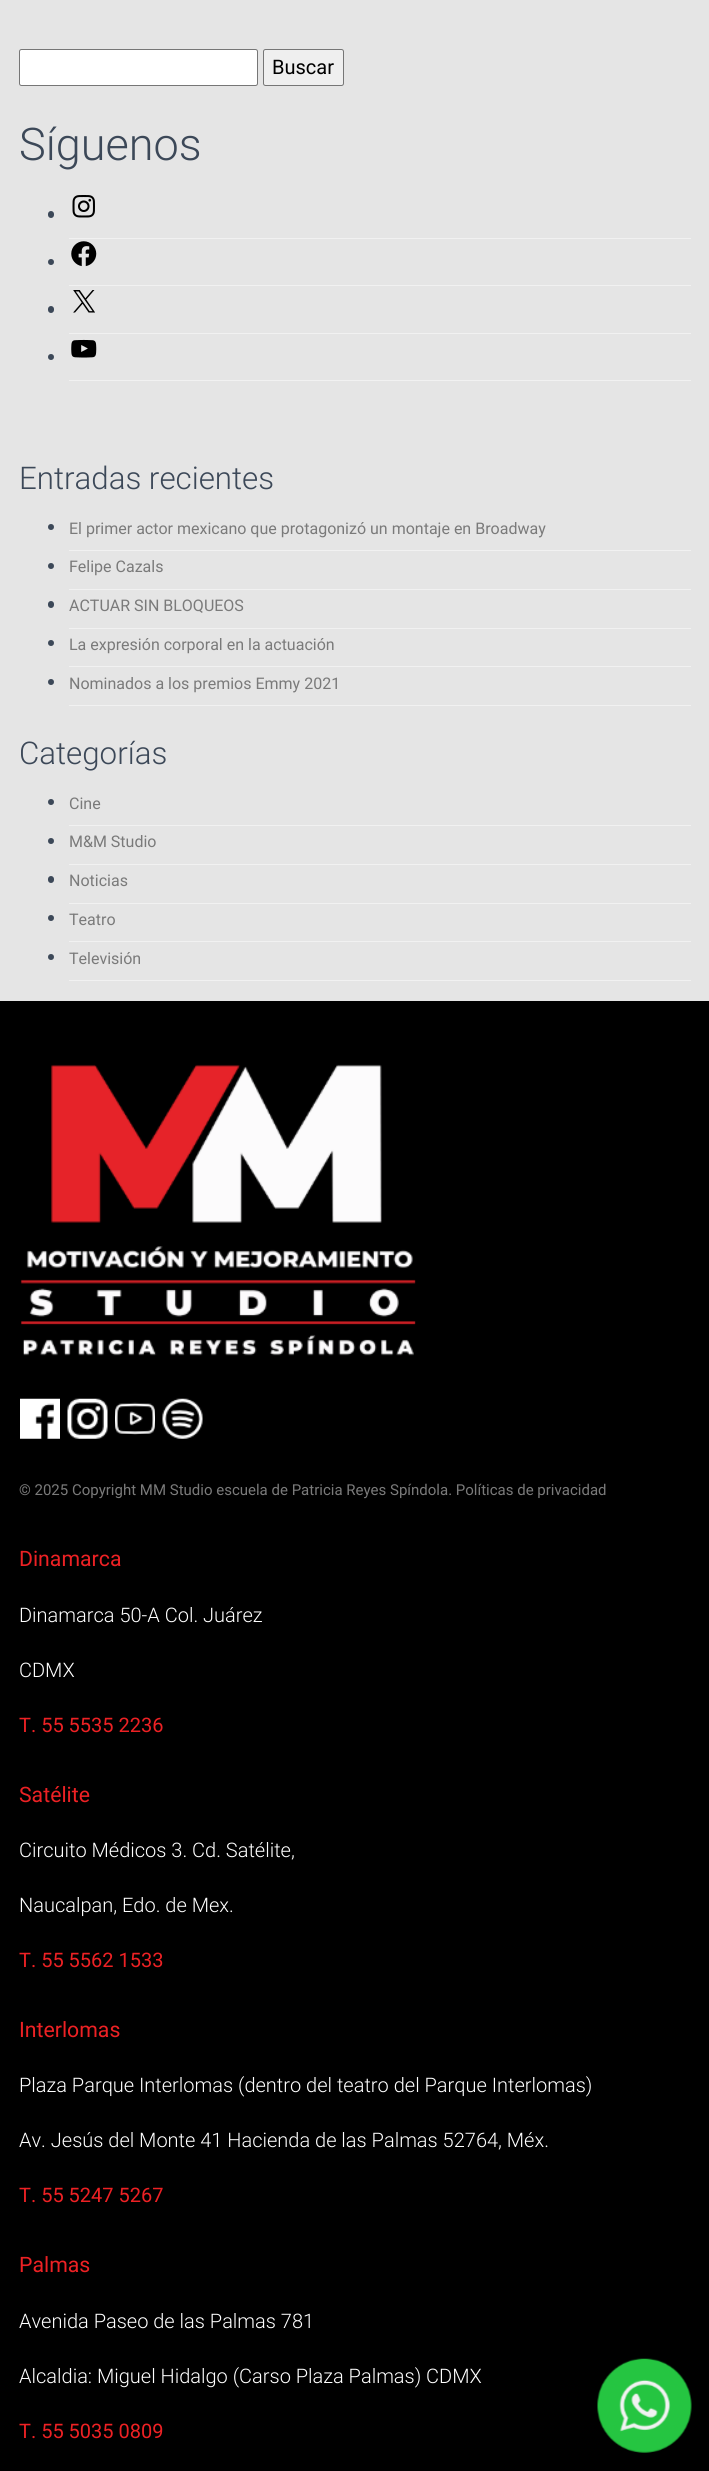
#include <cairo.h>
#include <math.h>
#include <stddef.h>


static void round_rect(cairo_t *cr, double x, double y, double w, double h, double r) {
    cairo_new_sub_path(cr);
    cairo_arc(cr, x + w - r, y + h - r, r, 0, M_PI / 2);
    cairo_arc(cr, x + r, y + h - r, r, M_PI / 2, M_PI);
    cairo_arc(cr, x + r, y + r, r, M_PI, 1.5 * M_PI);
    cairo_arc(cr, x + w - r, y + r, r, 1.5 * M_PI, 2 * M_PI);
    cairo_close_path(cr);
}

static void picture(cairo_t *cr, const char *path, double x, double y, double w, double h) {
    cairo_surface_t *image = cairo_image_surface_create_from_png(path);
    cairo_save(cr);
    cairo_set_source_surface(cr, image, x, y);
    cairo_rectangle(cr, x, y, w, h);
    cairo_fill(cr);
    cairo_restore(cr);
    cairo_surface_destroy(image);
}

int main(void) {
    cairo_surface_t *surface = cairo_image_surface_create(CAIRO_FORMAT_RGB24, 709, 2471);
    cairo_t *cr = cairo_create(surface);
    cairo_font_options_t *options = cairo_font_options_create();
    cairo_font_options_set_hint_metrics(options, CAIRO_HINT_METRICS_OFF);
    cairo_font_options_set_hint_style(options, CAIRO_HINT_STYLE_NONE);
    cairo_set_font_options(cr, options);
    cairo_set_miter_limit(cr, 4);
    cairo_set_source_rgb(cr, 0.898, 0.898, 0.898);
    cairo_paint(cr);
    cairo_set_source_rgb(cr, 1, 1, 1);
    round_rect(cr, 19.5, 49.5, 238, 36, 2);
    cairo_fill_preserve(cr);
    cairo_set_source_rgb(cr, 0.463, 0.463, 0.463);
    cairo_set_line_width(cr, 1);
    cairo_stroke(cr);
    cairo_set_source_rgb(cr, 0.937, 0.937, 0.937);
    round_rect(cr, 263.5, 49.5, 80, 36, 2);
    cairo_fill_preserve(cr);
    cairo_set_source_rgb(cr, 0.463, 0.463, 0.463);
    cairo_stroke(cr);
    cairo_select_font_face(cr, "Roboto", CAIRO_FONT_SLANT_NORMAL, CAIRO_FONT_WEIGHT_NORMAL);
    cairo_set_font_size(cr, 20);
    cairo_set_source_rgb(cr, 0, 0, 0);
    cairo_move_to(cr, 272, 74);
    cairo_show_text(cr, "Buscar");
    cairo_select_font_face(cr, "Roboto Light", CAIRO_FONT_SLANT_NORMAL, CAIRO_FONT_WEIGHT_NORMAL);
    cairo_set_font_size(cr, 45);
    cairo_set_source_rgb(cr, 0.235, 0.282, 0.345);
    cairo_move_to(cr, 19, 160);
    cairo_show_text(cr, "Síguenos");
    cairo_set_source_rgb(cr, 0.945, 0.945, 0.945);
    cairo_rectangle(cr, 69, 238, 622, 1);
    cairo_fill(cr);
    cairo_set_source_rgb(cr, 0.235, 0.282, 0.345);
    round_rect(cr, 48, 211, 6, 7, 3);
    cairo_fill(cr);
    picture(cr, "img1.png", 72, 195, 23, 23);
    cairo_set_source_rgb(cr, 0.945, 0.945, 0.945);
    cairo_rectangle(cr, 69, 285, 622, 1);
    cairo_fill(cr);
    cairo_set_source_rgb(cr, 0.235, 0.282, 0.345);
    cairo_arc(cr, 51, 262, 3, 0, 2 * M_PI);
    cairo_fill(cr);
    picture(cr, "img2.png", 71, 241, 26, 26);
    cairo_set_source_rgb(cr, 0.945, 0.945, 0.945);
    cairo_rectangle(cr, 69, 333, 622, 1);
    cairo_fill(cr);
    cairo_set_source_rgb(cr, 0.235, 0.282, 0.345);
    round_rect(cr, 48, 306, 6, 7, 3);
    cairo_fill(cr);
    picture(cr, "img3.png", 73, 290, 22, 23);
    cairo_set_source_rgb(cr, 0.945, 0.945, 0.945);
    cairo_rectangle(cr, 69, 380, 622, 1);
    cairo_fill(cr);
    cairo_set_source_rgb(cr, 0.235, 0.282, 0.345);
    cairo_arc(cr, 51, 357, 3, 0, 2 * M_PI);
    cairo_fill(cr);
    picture(cr, "img4.png", 71, 339, 26, 19);
    cairo_set_font_size(cr, 31.25);
    cairo_move_to(cr, 19, 489);
    cairo_show_text(cr, "Entradas recientes");
    cairo_set_source_rgb(cr, 0.945, 0.945, 0.945);
    cairo_rectangle(cr, 69, 550, 622, 1);
    cairo_fill(cr);
    cairo_set_source_rgb(cr, 0.235, 0.282, 0.345);
    cairo_arc(cr, 51, 527, 3, 0, 2 * M_PI);
    cairo_fill(cr);
    cairo_select_font_face(cr, "Roboto", CAIRO_FONT_SLANT_NORMAL, CAIRO_FONT_WEIGHT_NORMAL);
    cairo_set_font_size(cr, 16);
    cairo_set_source_rgb(cr, 0.478, 0.478, 0.478);
    cairo_move_to(cr, 69, 534);
    cairo_show_text(cr, "El primer actor mexicano que protagonizó un montaje en Broadway");
    cairo_set_source_rgb(cr, 0.945, 0.945, 0.945);
    cairo_rectangle(cr, 69, 589, 622, 1);
    cairo_fill(cr);
    cairo_set_source_rgb(cr, 0.235, 0.282, 0.345);
    cairo_arc(cr, 51, 566, 3, 0, 2 * M_PI);
    cairo_fill(cr);
    cairo_set_source_rgb(cr, 0.478, 0.478, 0.478);
    cairo_move_to(cr, 69, 572);
    cairo_show_text(cr, "Felipe Cazals");
    cairo_set_source_rgb(cr, 0.945, 0.945, 0.945);
    cairo_rectangle(cr, 69, 628, 622, 1);
    cairo_fill(cr);
    cairo_set_source_rgb(cr, 0.235, 0.282, 0.345);
    round_rect(cr, 48, 601, 6, 7, 3);
    cairo_fill(cr);
    cairo_set_source_rgb(cr, 0.478, 0.478, 0.478);
    cairo_move_to(cr, 69, 611);
    cairo_show_text(cr, "ACTUAR SIN BLOQUEOS");
    cairo_set_source_rgb(cr, 0.945, 0.945, 0.945);
    cairo_rectangle(cr, 69, 666, 622, 1);
    cairo_fill(cr);
    cairo_set_source_rgb(cr, 0.235, 0.282, 0.345);
    cairo_arc(cr, 51, 643, 3, 0, 2 * M_PI);
    cairo_fill(cr);
    cairo_set_source_rgb(cr, 0.478, 0.478, 0.478);
    cairo_move_to(cr, 69, 650);
    cairo_show_text(cr, "La expresión corporal en la actuación");
    cairo_set_source_rgb(cr, 0.945, 0.945, 0.945);
    cairo_rectangle(cr, 69, 705, 622, 1);
    cairo_fill(cr);
    cairo_set_source_rgb(cr, 0.235, 0.282, 0.345);
    cairo_arc(cr, 51, 682, 3, 0, 2 * M_PI);
    cairo_fill(cr);
    cairo_set_source_rgb(cr, 0.478, 0.478, 0.478);
    cairo_move_to(cr, 69, 689);
    cairo_show_text(cr, "Nominados a los premios Emmy 2021");
    cairo_select_font_face(cr, "Roboto Light", CAIRO_FONT_SLANT_NORMAL, CAIRO_FONT_WEIGHT_NORMAL);
    cairo_set_font_size(cr, 31.25);
    cairo_set_source_rgb(cr, 0.235, 0.282, 0.345);
    cairo_move_to(cr, 19, 764);
    cairo_show_text(cr, "Categorías");
    cairo_set_source_rgb(cr, 0.945, 0.945, 0.945);
    cairo_rectangle(cr, 69, 825, 622, 1);
    cairo_fill(cr);
    cairo_set_source_rgb(cr, 0.235, 0.282, 0.345);
    cairo_arc(cr, 51, 802, 3, 0, 2 * M_PI);
    cairo_fill(cr);
    cairo_select_font_face(cr, "Roboto", CAIRO_FONT_SLANT_NORMAL, CAIRO_FONT_WEIGHT_NORMAL);
    cairo_set_font_size(cr, 16);
    cairo_set_source_rgb(cr, 0.478, 0.478, 0.478);
    cairo_move_to(cr, 69, 809);
    cairo_show_text(cr, "Cine");
    cairo_set_source_rgb(cr, 0.945, 0.945, 0.945);
    cairo_rectangle(cr, 69, 864, 622, 1);
    cairo_fill(cr);
    cairo_set_source_rgb(cr, 0.235, 0.282, 0.345);
    cairo_arc(cr, 51, 841, 3, 0, 2 * M_PI);
    cairo_fill(cr);
    cairo_set_source_rgb(cr, 0.478, 0.478, 0.478);
    cairo_move_to(cr, 69, 847);
    cairo_show_text(cr, "M&M Studio");
    cairo_set_source_rgb(cr, 0.945, 0.945, 0.945);
    cairo_rectangle(cr, 69, 903, 622, 1);
    cairo_fill(cr);
    cairo_set_source_rgb(cr, 0.235, 0.282, 0.345);
    round_rect(cr, 48, 876, 6, 7, 3);
    cairo_fill(cr);
    cairo_set_source_rgb(cr, 0.478, 0.478, 0.478);
    cairo_move_to(cr, 69, 886);
    cairo_show_text(cr, "Noticias");
    cairo_set_source_rgb(cr, 0.945, 0.945, 0.945);
    cairo_rectangle(cr, 69, 941, 622, 1);
    cairo_fill(cr);
    cairo_set_source_rgb(cr, 0.235, 0.282, 0.345);
    cairo_arc(cr, 51, 918, 3, 0, 2 * M_PI);
    cairo_fill(cr);
    cairo_set_source_rgb(cr, 0.478, 0.478, 0.478);
    cairo_move_to(cr, 69, 925);
    cairo_show_text(cr, "Teatro");
    cairo_set_source_rgb(cr, 0.945, 0.945, 0.945);
    cairo_rectangle(cr, 69, 980, 622, 1);
    cairo_fill(cr);
    cairo_set_source_rgb(cr, 0.235, 0.282, 0.345);
    cairo_arc(cr, 51, 957, 3, 0, 2 * M_PI);
    cairo_fill(cr);
    cairo_set_source_rgb(cr, 0.478, 0.478, 0.478);
    cairo_move_to(cr, 69, 964);
    cairo_show_text(cr, "Televisión");
    cairo_set_source_rgb(cr, 0, 0, 0);
    cairo_rectangle(cr, 0, 1001, 709, 1470);
    cairo_fill(cr);
    picture(cr, "img5.png", 20, 1064, 396, 292);
    picture(cr, "img6.png", 20, 1398, 40, 41);
    picture(cr, "img7.png", 67, 1398, 41, 41);
    picture(cr, "img8.png", 115, 1402, 40, 33);
    picture(cr, "img9.png", 162, 1398, 41, 41);
    cairo_set_font_size(cr, 15);
    cairo_set_source_rgb(cr, 0.478, 0.478, 0.478);
    cairo_move_to(cr, 19, 1495);
    cairo_show_text(cr, "© 2025 Copyright MM Studio escuela de Patricia Reyes Spíndola. Políticas de privacidad");
    cairo_set_font_size(cr, 21.25);
    cairo_set_source_rgb(cr, 0.929, 0.129, 0.141);
    cairo_move_to(cr, 19, 1566);
    cairo_show_text(cr, "Dinamarca");
    cairo_select_font_face(cr, "Roboto Light", CAIRO_FONT_SLANT_NORMAL, CAIRO_FONT_WEIGHT_NORMAL);
    cairo_set_font_size(cr, 20);
    cairo_set_source_rgb(cr, 1, 1, 1);
    cairo_move_to(cr, 19, 1622);
    cairo_show_text(cr, "Dinamarca 50-A Col. Juárez");
    cairo_move_to(cr, 19, 1677);
    cairo_show_text(cr, "CDMX");
    cairo_select_font_face(cr, "Roboto", CAIRO_FONT_SLANT_NORMAL, CAIRO_FONT_WEIGHT_NORMAL);
    cairo_set_source_rgb(cr, 0.929, 0.129, 0.141);
    cairo_move_to(cr, 19, 1732);
    cairo_show_text(cr, "T. 55 5535 2236");
    cairo_set_font_size(cr, 21.25);
    cairo_move_to(cr, 19, 1802);
    cairo_show_text(cr, "Satélite");
    cairo_select_font_face(cr, "Roboto Light", CAIRO_FONT_SLANT_NORMAL, CAIRO_FONT_WEIGHT_NORMAL);
    cairo_set_font_size(cr, 20);
    cairo_set_source_rgb(cr, 1, 1, 1);
    cairo_move_to(cr, 19, 1857);
    cairo_show_text(cr, "Circuito Médicos 3. Cd. Satélite,");
    cairo_move_to(cr, 19, 1912);
    cairo_show_text(cr, "Naucalpan, Edo. de Mex.");
    cairo_select_font_face(cr, "Roboto", CAIRO_FONT_SLANT_NORMAL, CAIRO_FONT_WEIGHT_NORMAL);
    cairo_set_source_rgb(cr, 0.929, 0.129, 0.141);
    cairo_move_to(cr, 19, 1967);
    cairo_show_text(cr, "T. 55 5562 1533");
    cairo_set_font_size(cr, 21.25);
    cairo_move_to(cr, 19, 2037);
    cairo_show_text(cr, "Interlomas");
    cairo_select_font_face(cr, "Roboto Light", CAIRO_FONT_SLANT_NORMAL, CAIRO_FONT_WEIGHT_NORMAL);
    cairo_set_font_size(cr, 20);
    cairo_set_source_rgb(cr, 1, 1, 1);
    cairo_move_to(cr, 19, 2092);
    cairo_show_text(cr, "Plaza Parque Interlomas (dentro del teatro del Parque Interlomas)");
    cairo_move_to(cr, 19, 2147);
    cairo_show_text(cr, "Av. Jesús del Monte 41 Hacienda de las Palmas 52764, Méx.");
    cairo_select_font_face(cr, "Roboto", CAIRO_FONT_SLANT_NORMAL, CAIRO_FONT_WEIGHT_NORMAL);
    cairo_set_source_rgb(cr, 0.929, 0.129, 0.141);
    cairo_move_to(cr, 19, 2202);
    cairo_show_text(cr, "T. 55 5247 5267");
    cairo_set_font_size(cr, 21.25);
    cairo_move_to(cr, 19, 2272);
    cairo_show_text(cr, "Palmas");
    cairo_select_font_face(cr, "Roboto Light", CAIRO_FONT_SLANT_NORMAL, CAIRO_FONT_WEIGHT_NORMAL);
    cairo_set_font_size(cr, 20);
    cairo_set_source_rgb(cr, 1, 1, 1);
    cairo_move_to(cr, 19, 2328);
    cairo_show_text(cr, "Avenida Paseo de las Palmas 781");
    cairo_move_to(cr, 19, 2383);
    cairo_show_text(cr, "Alcaldia: Miguel Hidalgo (Carso Plaza Palmas) CDMX");
    cairo_select_font_face(cr, "Roboto", CAIRO_FONT_SLANT_NORMAL, CAIRO_FONT_WEIGHT_NORMAL);
    cairo_set_source_rgb(cr, 0.929, 0.129, 0.141);
    cairo_move_to(cr, 19, 2438);
    cairo_show_text(cr, "T. 55 5035 0809");
    picture(cr, "img10.png", 597, 2358, 95, 95);
    cairo_surface_write_to_png(surface, "page.png");
    cairo_font_options_destroy(options);
    cairo_destroy(cr);
    cairo_surface_destroy(surface);
    return 0;
}
